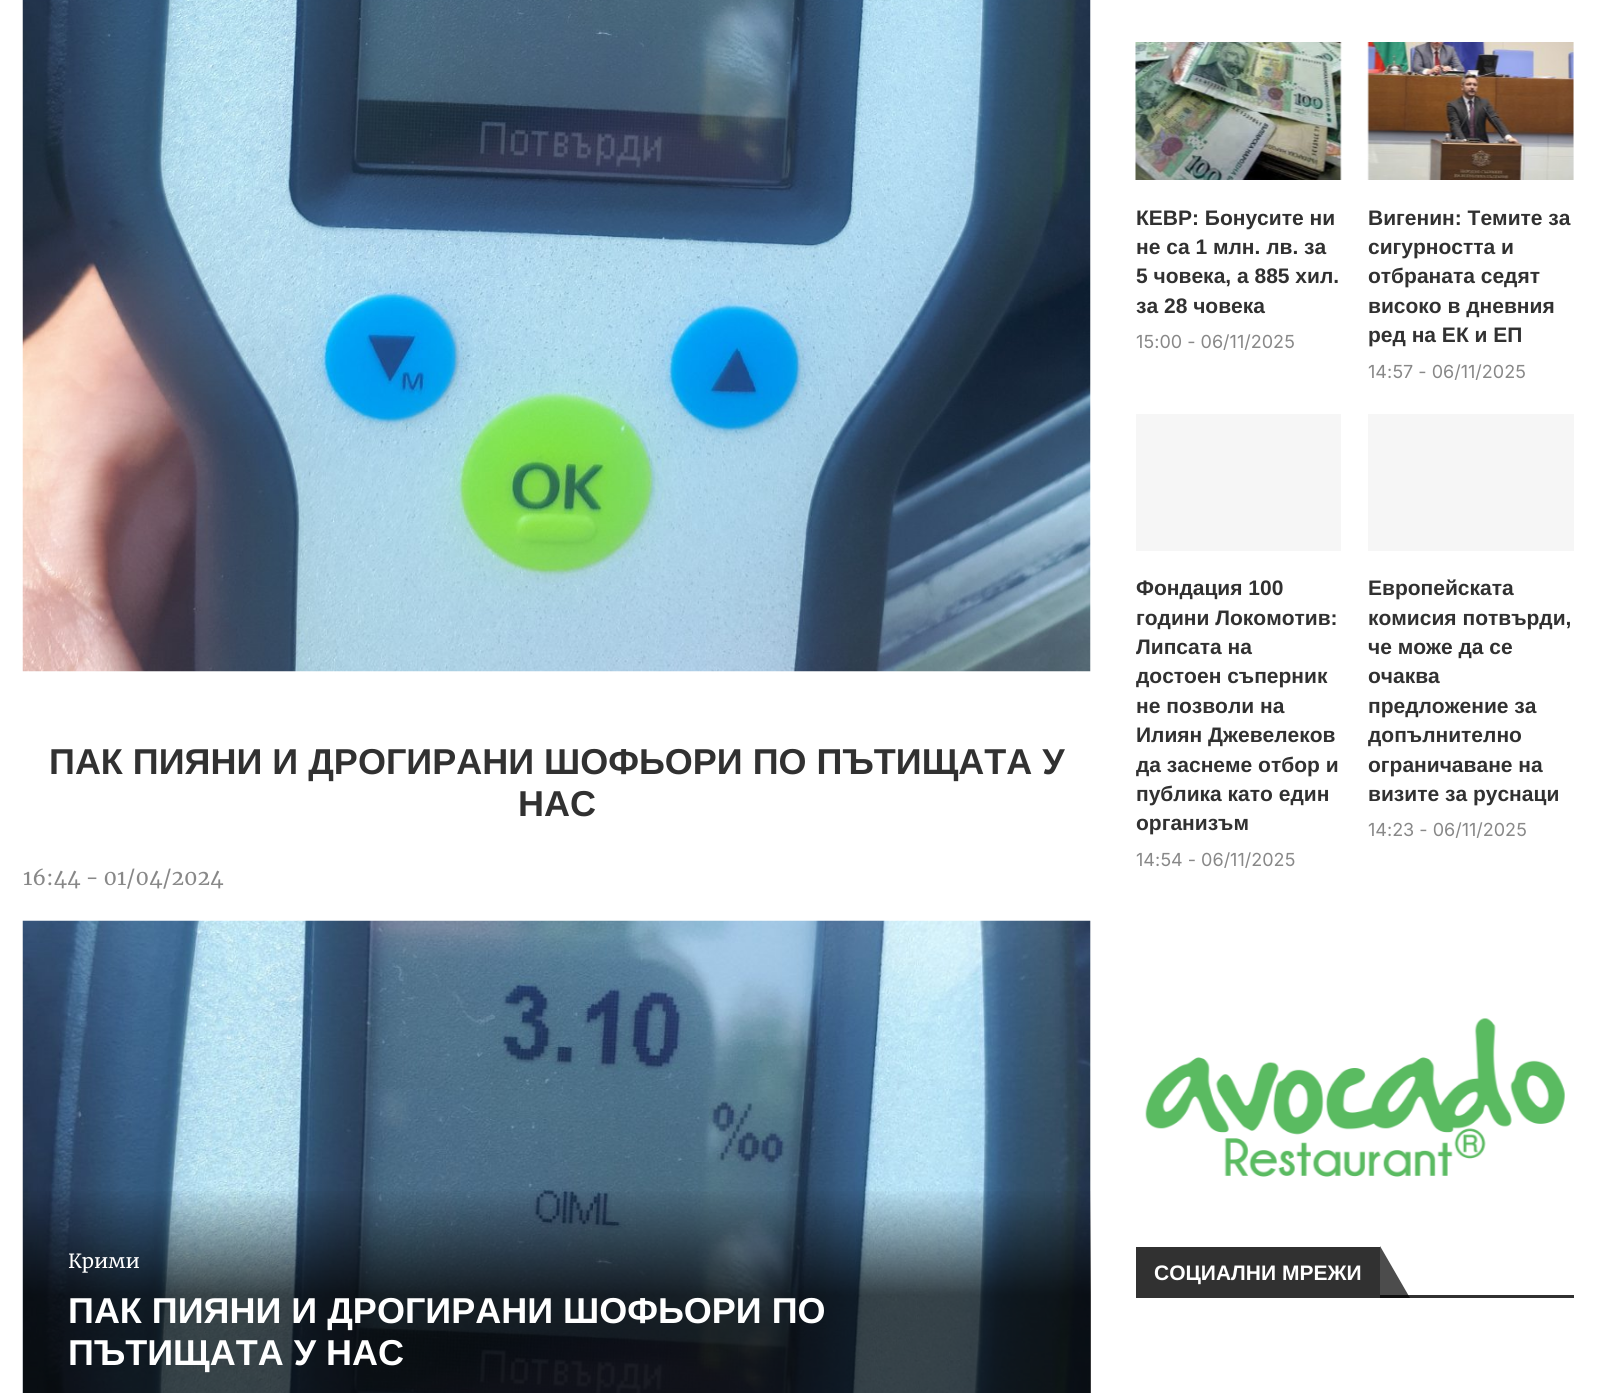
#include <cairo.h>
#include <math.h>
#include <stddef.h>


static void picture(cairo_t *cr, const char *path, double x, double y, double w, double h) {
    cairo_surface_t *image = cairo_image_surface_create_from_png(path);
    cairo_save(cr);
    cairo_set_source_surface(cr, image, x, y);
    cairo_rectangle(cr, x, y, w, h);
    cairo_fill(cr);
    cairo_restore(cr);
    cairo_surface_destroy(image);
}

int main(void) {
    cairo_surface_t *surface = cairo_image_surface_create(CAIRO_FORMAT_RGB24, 1607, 1393);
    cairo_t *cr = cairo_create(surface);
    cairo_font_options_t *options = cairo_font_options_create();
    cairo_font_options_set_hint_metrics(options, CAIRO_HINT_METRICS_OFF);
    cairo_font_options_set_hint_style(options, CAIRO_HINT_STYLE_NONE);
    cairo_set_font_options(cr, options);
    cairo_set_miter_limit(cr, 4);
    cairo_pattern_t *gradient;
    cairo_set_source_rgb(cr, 1, 1, 1);
    cairo_paint(cr);
    picture(cr, "img1.png", 22, 0, 1069, 672);
    cairo_select_font_face(cr, "Liberation Sans", CAIRO_FONT_SLANT_NORMAL, CAIRO_FONT_WEIGHT_BOLD);
    cairo_set_font_size(cr, 36);
    cairo_set_source_rgb(cr, 0.192, 0.192, 0.192);
    cairo_move_to(cr, 49, 774);
    cairo_show_text(cr, "ПАК ПИЯНИ И ДРОГИРАНИ ШОФЬОРИ ПО ПЪТИЩАТА У");
    cairo_move_to(cr, 518, 816);
    cairo_show_text(cr, "НАС");
    cairo_select_font_face(cr, "Merriweather", CAIRO_FONT_SLANT_NORMAL, CAIRO_FONT_WEIGHT_NORMAL);
    cairo_set_font_size(cr, 21);
    cairo_set_source_rgb(cr, 0.533, 0.533, 0.533);
    cairo_move_to(cr, 23, 885);
    cairo_show_text(cr, "16:44 - 01/04/2024");
    cairo_set_source_rgb(cr, 0.961, 0.961, 0.961);
    cairo_rectangle(cr, 1090, 921, 1, 472);
    cairo_fill(cr);
    picture(cr, "img2.png", 22, 920, 1069, 473);
    gradient = cairo_pattern_create_linear(557, 921, 557, 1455);
    cairo_pattern_add_color_stop_rgba(gradient, 0.5, 0, 0, 0, 0);
    cairo_pattern_add_color_stop_rgba(gradient, 0.7, 0, 0, 0, 0.7);
    cairo_set_source(cr, gradient);
    cairo_pattern_destroy(gradient);
    cairo_rectangle(cr, 23, 1191, 1068, 202);
    cairo_fill(cr);
    cairo_set_font_size(cr, 19.5);
    cairo_set_source_rgb(cr, 1, 1, 1);
    cairo_move_to(cr, 68, 1268);
    cairo_show_text(cr, "Крими");
    cairo_select_font_face(cr, "Liberation Sans", CAIRO_FONT_SLANT_NORMAL, CAIRO_FONT_WEIGHT_BOLD);
    cairo_set_font_size(cr, 36);
    cairo_move_to(cr, 68, 1323);
    cairo_show_text(cr, "ПАК ПИЯНИ И ДРОГИРАНИ ШОФЬОРИ ПО");
    cairo_move_to(cr, 68, 1365);
    cairo_show_text(cr, "ПЪТИЩАТА У НАС");
    cairo_set_source_rgb(cr, 0.961, 0.961, 0.961);
    cairo_rectangle(cr, 1340, 42, 1, 138);
    cairo_fill(cr);
    picture(cr, "img3.png", 1135, 42, 207, 138);
    cairo_set_font_size(cr, 21);
    cairo_set_source_rgb(cr, 0.192, 0.192, 0.192);
    cairo_move_to(cr, 1136, 225);
    cairo_show_text(cr, "КЕВР: Бонусите ни");
    cairo_move_to(cr, 1136, 254);
    cairo_show_text(cr, "не са 1 млн. лв. за");
    cairo_move_to(cr, 1136, 283);
    cairo_show_text(cr, "5 човека, а 885 хил.");
    cairo_move_to(cr, 1136, 313);
    cairo_show_text(cr, "за 28 човека");
    cairo_select_font_face(cr, "Inter", CAIRO_FONT_SLANT_NORMAL, CAIRO_FONT_WEIGHT_NORMAL);
    cairo_set_font_size(cr, 18);
    cairo_set_source_rgb(cr, 0.533, 0.533, 0.533);
    cairo_move_to(cr, 1136, 348);
    cairo_show_text(cr, "15:00 - 06/11/2025");
    cairo_set_source_rgb(cr, 0.961, 0.961, 0.961);
    cairo_rectangle(cr, 1368, 42, 206, 138);
    cairo_fill(cr);
    picture(cr, "img4.png", 1367, 42, 207, 138);
    cairo_select_font_face(cr, "Liberation Sans", CAIRO_FONT_SLANT_NORMAL, CAIRO_FONT_WEIGHT_BOLD);
    cairo_set_font_size(cr, 21);
    cairo_set_source_rgb(cr, 0.192, 0.192, 0.192);
    cairo_move_to(cr, 1368, 225);
    cairo_show_text(cr, "Вигенин: Темите за");
    cairo_move_to(cr, 1368, 254);
    cairo_show_text(cr, "сигурността и");
    cairo_move_to(cr, 1368, 283);
    cairo_show_text(cr, "отбраната седят");
    cairo_move_to(cr, 1368, 313);
    cairo_show_text(cr, "високо в дневния");
    cairo_move_to(cr, 1368, 342);
    cairo_show_text(cr, "ред на ЕК и ЕП");
    cairo_select_font_face(cr, "Inter", CAIRO_FONT_SLANT_NORMAL, CAIRO_FONT_WEIGHT_NORMAL);
    cairo_set_font_size(cr, 18);
    cairo_set_source_rgb(cr, 0.533, 0.533, 0.533);
    cairo_move_to(cr, 1368, 378);
    cairo_show_text(cr, "14:57 - 06/11/2025");
    cairo_set_source_rgb(cr, 0.961, 0.961, 0.961);
    cairo_rectangle(cr, 1136, 414, 205, 137);
    cairo_fill(cr);
    cairo_select_font_face(cr, "Liberation Sans", CAIRO_FONT_SLANT_NORMAL, CAIRO_FONT_WEIGHT_BOLD);
    cairo_set_font_size(cr, 21);
    cairo_set_source_rgb(cr, 0.192, 0.192, 0.192);
    cairo_move_to(cr, 1136, 595);
    cairo_show_text(cr, "Фондация 100");
    cairo_move_to(cr, 1136, 625);
    cairo_show_text(cr, "години Локомотив:");
    cairo_move_to(cr, 1136, 654);
    cairo_show_text(cr, "Липсата на");
    cairo_move_to(cr, 1136, 683);
    cairo_show_text(cr, "достоен съперник");
    cairo_move_to(cr, 1136, 713);
    cairo_show_text(cr, "не позволи на");
    cairo_move_to(cr, 1136, 742);
    cairo_show_text(cr, "Илиян Джевелеков");
    cairo_move_to(cr, 1136, 772);
    cairo_show_text(cr, "да заснеме отбор и");
    cairo_move_to(cr, 1136, 801);
    cairo_show_text(cr, "публика като един");
    cairo_move_to(cr, 1136, 830);
    cairo_show_text(cr, "организъм");
    cairo_select_font_face(cr, "Inter", CAIRO_FONT_SLANT_NORMAL, CAIRO_FONT_WEIGHT_NORMAL);
    cairo_set_font_size(cr, 18);
    cairo_set_source_rgb(cr, 0.533, 0.533, 0.533);
    cairo_move_to(cr, 1136, 866);
    cairo_show_text(cr, "14:54 - 06/11/2025");
    cairo_set_source_rgb(cr, 0.961, 0.961, 0.961);
    cairo_rectangle(cr, 1368, 414, 206, 137);
    cairo_fill(cr);
    cairo_select_font_face(cr, "Liberation Sans", CAIRO_FONT_SLANT_NORMAL, CAIRO_FONT_WEIGHT_BOLD);
    cairo_set_font_size(cr, 21);
    cairo_set_source_rgb(cr, 0.192, 0.192, 0.192);
    cairo_move_to(cr, 1368, 595);
    cairo_show_text(cr, "Европейската");
    cairo_move_to(cr, 1368, 625);
    cairo_show_text(cr, "комисия потвърди,");
    cairo_move_to(cr, 1368, 654);
    cairo_show_text(cr, "че може да се");
    cairo_move_to(cr, 1368, 683);
    cairo_show_text(cr, "очаква");
    cairo_move_to(cr, 1368, 713);
    cairo_show_text(cr, "предложение за");
    cairo_move_to(cr, 1368, 742);
    cairo_show_text(cr, "допълнително");
    cairo_move_to(cr, 1368, 772);
    cairo_show_text(cr, "ограничаване на");
    cairo_move_to(cr, 1368, 801);
    cairo_show_text(cr, "визите за руснаци");
    cairo_select_font_face(cr, "Inter", CAIRO_FONT_SLANT_NORMAL, CAIRO_FONT_WEIGHT_NORMAL);
    cairo_set_font_size(cr, 18);
    cairo_set_source_rgb(cr, 0.533, 0.533, 0.533);
    cairo_move_to(cr, 1368, 836);
    cairo_show_text(cr, "14:23 - 06/11/2025");
    picture(cr, "img5.png", 1145, 1018, 420, 159);
    cairo_set_source_rgb(cr, 0.192, 0.192, 0.192);
    cairo_rectangle(cr, 1380, 1295, 194, 3);
    cairo_fill(cr);
    cairo_rectangle(cr, 1136, 1247, 244, 51);
    cairo_fill(cr);
    cairo_select_font_face(cr, "Liberation Sans", CAIRO_FONT_SLANT_NORMAL, CAIRO_FONT_WEIGHT_BOLD);
    cairo_set_font_size(cr, 21);
    cairo_set_source_rgb(cr, 1, 1, 1);
    cairo_move_to(cr, 1154, 1280);
    cairo_show_text(cr, "СОЦИАЛНИ МРЕЖИ");
    cairo_set_source_rgba(cr, 0, 0, 0, 0.7);
    cairo_new_path(cr);
    cairo_move_to(cr, 1410, 1298);
    cairo_line_to(cr, 1380, 1298);
    cairo_line_to(cr, 1380, 1246);
    cairo_close_path(cr);
    cairo_fill(cr);
    cairo_surface_write_to_png(surface, "page.png");
    cairo_font_options_destroy(options);
    cairo_destroy(cr);
    cairo_surface_destroy(surface);
    return 0;
}
